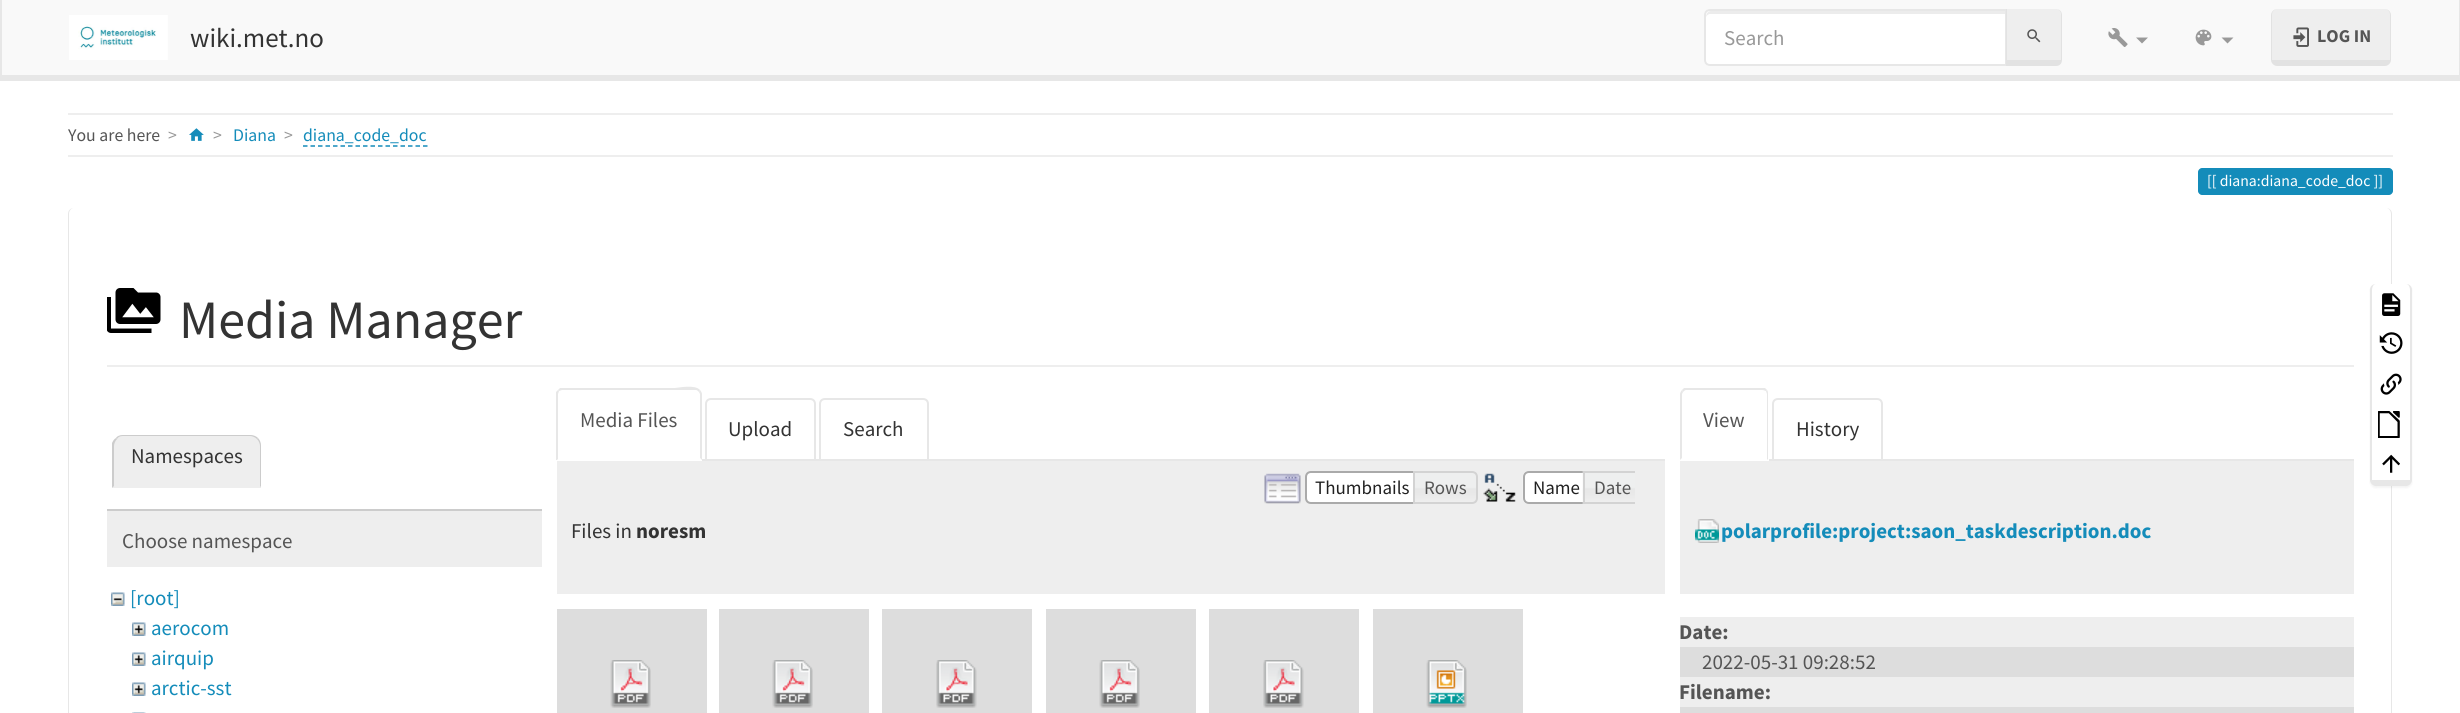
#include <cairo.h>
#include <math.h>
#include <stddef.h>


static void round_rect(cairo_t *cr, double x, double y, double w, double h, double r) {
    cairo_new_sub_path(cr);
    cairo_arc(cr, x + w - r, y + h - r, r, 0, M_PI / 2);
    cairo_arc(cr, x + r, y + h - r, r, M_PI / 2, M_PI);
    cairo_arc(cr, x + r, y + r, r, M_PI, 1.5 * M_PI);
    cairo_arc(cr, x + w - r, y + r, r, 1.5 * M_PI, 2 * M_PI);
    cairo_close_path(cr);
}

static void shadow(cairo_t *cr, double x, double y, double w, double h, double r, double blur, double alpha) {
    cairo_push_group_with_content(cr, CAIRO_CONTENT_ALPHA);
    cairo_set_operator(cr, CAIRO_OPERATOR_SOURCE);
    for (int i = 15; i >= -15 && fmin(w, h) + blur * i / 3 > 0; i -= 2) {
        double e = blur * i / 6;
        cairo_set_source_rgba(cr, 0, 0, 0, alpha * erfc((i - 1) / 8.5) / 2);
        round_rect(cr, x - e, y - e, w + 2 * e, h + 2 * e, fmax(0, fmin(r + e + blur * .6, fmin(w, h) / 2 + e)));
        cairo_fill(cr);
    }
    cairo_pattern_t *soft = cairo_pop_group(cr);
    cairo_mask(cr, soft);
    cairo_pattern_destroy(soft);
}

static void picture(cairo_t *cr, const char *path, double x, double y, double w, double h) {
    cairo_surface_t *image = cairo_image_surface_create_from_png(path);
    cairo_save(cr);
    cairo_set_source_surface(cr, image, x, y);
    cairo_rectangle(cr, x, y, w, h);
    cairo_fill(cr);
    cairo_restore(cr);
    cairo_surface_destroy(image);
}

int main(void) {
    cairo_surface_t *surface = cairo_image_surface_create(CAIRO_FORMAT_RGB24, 2460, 713);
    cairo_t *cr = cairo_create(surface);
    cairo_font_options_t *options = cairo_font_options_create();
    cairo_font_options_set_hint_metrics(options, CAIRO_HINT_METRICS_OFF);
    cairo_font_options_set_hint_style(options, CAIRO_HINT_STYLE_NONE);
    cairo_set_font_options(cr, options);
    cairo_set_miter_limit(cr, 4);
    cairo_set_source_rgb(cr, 1, 1, 1);
    cairo_paint(cr);
    cairo_set_source_rgb(cr, 0.973, 0.973, 0.973);
    cairo_rectangle(cr, 2, 0, 2457, 75);
    cairo_fill(cr);
    cairo_set_source_rgb(cr, 0.906, 0.906, 0.906);
    cairo_rectangle(cr, 2459, 0, 1, 81);
    cairo_fill(cr);
    cairo_rectangle(cr, 0, 75, 2460, 6);
    cairo_fill(cr);
    cairo_rectangle(cr, 0, 0, 2, 81);
    cairo_fill(cr);
    picture(cr, "img1.png", 69, 15, 99, 45);
    cairo_select_font_face(cr, "Source Sans Pro", CAIRO_FONT_SLANT_NORMAL, CAIRO_FONT_WEIGHT_NORMAL);
    cairo_set_font_size(cr, 27);
    cairo_set_source_rgb(cr, 0.2, 0.2, 0.2);
    cairo_move_to(cr, 190, 47);
    cairo_show_text(cr, "wiki.met.no");
    cairo_set_source_rgb(cr, 1, 1, 1);
    cairo_new_path(cr);
    cairo_move_to(cr, 1710, 9);
    cairo_line_to(cr, 2007, 9);
    cairo_line_to(cr, 2007, 66);
    cairo_line_to(cr, 1710, 66);
    cairo_curve_to(cr, 1706.5, 66, 1704, 63.5, 1704, 60);
    cairo_line_to(cr, 1704, 15);
    cairo_curve_to(cr, 1704, 11.5, 1706.5, 9, 1710, 9);
    cairo_close_path(cr);
    cairo_fill(cr);
    cairo_set_source_rgb(cr, 0.925, 0.925, 0.925);
    cairo_new_path(cr);
    cairo_move_to(cr, 1710, 14);
    cairo_line_to(cr, 2006, 14);
    cairo_line_to(cr, 2006, 11);
    cairo_line_to(cr, 1711, 11);
    cairo_curve_to(cr, 1707, 11, 1706, 15, 1706, 18);
    cairo_curve_to(cr, 1706, 16, 1708, 14, 1710, 14);
    cairo_close_path(cr);
    cairo_fill(cr);
    cairo_new_path(cr);
    cairo_move_to(cr, 1710, 10);
    cairo_line_to(cr, 2006, 10);
    cairo_line_to(cr, 2006, 65);
    cairo_line_to(cr, 1710, 65);
    cairo_curve_to(cr, 1707, 65, 1705, 63, 1705, 60);
    cairo_line_to(cr, 1705, 15);
    cairo_curve_to(cr, 1705, 12, 1707, 10, 1710, 10);
    cairo_close_path(cr);
    cairo_set_source_rgb(cr, 0.906, 0.906, 0.906);
    cairo_stroke(cr);
    cairo_set_font_size(cr, 21);
    cairo_set_source_rgb(cr, 0.6, 0.6, 0.6);
    cairo_move_to(cr, 1724, 45);
    cairo_show_text(cr, "Search");
    cairo_set_source_rgb(cr, 0.933, 0.933, 0.933);
    cairo_new_path(cr);
    cairo_move_to(cr, 2007, 9);
    cairo_line_to(cr, 2056, 9);
    cairo_curve_to(cr, 2059, 9, 2061, 12, 2061, 15);
    cairo_line_to(cr, 2061, 60);
    cairo_line_to(cr, 2007, 60);
    cairo_close_path(cr);
    cairo_fill(cr);
    cairo_set_source_rgb(cr, 0.886, 0.886, 0.886);
    cairo_set_fill_rule(cr, CAIRO_FILL_RULE_EVEN_ODD);
    cairo_new_path(cr);
    cairo_move_to(cr, 2006, 9);
    cairo_line_to(cr, 2056, 9);
    cairo_curve_to(cr, 2060, 9, 2062, 12, 2062, 15);
    cairo_line_to(cr, 2062, 60);
    cairo_curve_to(cr, 2062, 63, 2060, 66, 2056, 66);
    cairo_line_to(cr, 2006, 66);
    cairo_close_path(cr);
    cairo_move_to(cr, 2007, 9);
    cairo_line_to(cr, 2056, 9);
    cairo_curve_to(cr, 2059, 9, 2061, 12, 2061, 15);
    cairo_line_to(cr, 2061, 60);
    cairo_line_to(cr, 2007, 60);
    cairo_close_path(cr);
    cairo_fill(cr);
    picture(cr, "img2.png", 2027, 29, 14, 14);
    picture(cr, "img3.png", 2108, 28, 20, 19);
    cairo_set_source_rgb(cr, 0.6, 0.6, 0.6);
    cairo_set_fill_rule(cr, CAIRO_FILL_RULE_WINDING);
    cairo_new_path(cr);
    cairo_move_to(cr, 2136, 37.5);
    cairo_line_to(cr, 2148, 37.5);
    cairo_line_to(cr, 2142, 43.5);
    cairo_close_path(cr);
    cairo_fill(cr);
    picture(cr, "img4.png", 2195, 29, 17, 17);
    cairo_new_path(cr);
    cairo_move_to(cr, 2221.5, 37.5);
    cairo_line_to(cr, 2233.5, 37.5);
    cairo_line_to(cr, 2227.5, 43.5);
    cairo_close_path(cr);
    cairo_fill(cr);
    cairo_set_source_rgb(cr, 0.933, 0.933, 0.933);
    cairo_new_path(cr);
    cairo_move_to(cr, 2277, 9);
    cairo_line_to(cr, 2385, 9);
    cairo_curve_to(cr, 2387, 9, 2390, 12, 2390, 15);
    cairo_line_to(cr, 2390, 60);
    cairo_line_to(cr, 2272, 60);
    cairo_line_to(cr, 2272, 15);
    cairo_curve_to(cr, 2272, 12, 2275, 9, 2277, 9);
    cairo_close_path(cr);
    cairo_fill(cr);
    cairo_set_source_rgb(cr, 0.886, 0.886, 0.886);
    cairo_set_fill_rule(cr, CAIRO_FILL_RULE_EVEN_ODD);
    cairo_new_path(cr);
    cairo_move_to(cr, 2277, 9);
    cairo_line_to(cr, 2385, 9);
    cairo_curve_to(cr, 2388, 9, 2391, 12, 2391, 15);
    cairo_line_to(cr, 2391, 60);
    cairo_curve_to(cr, 2391, 63, 2388, 66, 2385, 66);
    cairo_line_to(cr, 2277, 66);
    cairo_curve_to(cr, 2274, 66, 2271, 63, 2271, 60);
    cairo_line_to(cr, 2271, 15);
    cairo_curve_to(cr, 2271, 12, 2274, 9, 2277, 9);
    cairo_close_path(cr);
    cairo_move_to(cr, 2277, 9);
    cairo_line_to(cr, 2385, 9);
    cairo_curve_to(cr, 2387, 9, 2390, 12, 2390, 15);
    cairo_line_to(cr, 2390, 60);
    cairo_line_to(cr, 2272, 60);
    cairo_line_to(cr, 2272, 15);
    cairo_curve_to(cr, 2272, 12, 2275, 9, 2277, 9);
    cairo_close_path(cr);
    cairo_fill(cr);
    picture(cr, "img5.png", 2293, 27, 16, 20);
    cairo_select_font_face(cr, "Source Sans Pro", CAIRO_FONT_SLANT_NORMAL, CAIRO_FONT_WEIGHT_BOLD);
    cairo_set_font_size(cr, 18);
    cairo_set_source_rgb(cr, 0.333, 0.333, 0.333);
    cairo_move_to(cr, 2317, 42);
    cairo_show_text(cr, "LOG IN");
    cairo_set_source_rgb(cr, 0.933, 0.933, 0.933);
    cairo_rectangle(cr, 68, 113, 2325, 2);
    cairo_fill(cr);
    cairo_select_font_face(cr, "Source Sans Pro", CAIRO_FONT_SLANT_NORMAL, CAIRO_FONT_WEIGHT_NORMAL);
    cairo_set_font_size(cr, 17.75);
    cairo_set_source_rgb(cr, 0.333, 0.333, 0.333);
    cairo_move_to(cr, 68, 141);
    cairo_show_text(cr, "You are here");
    cairo_set_source_rgb(cr, 0.6, 0.6, 0.6);
    cairo_move_to(cr, 168, 141);
    cairo_show_text(cr, ">");
    picture(cr, "img6.png", 189, 128, 15, 13);
    cairo_move_to(cr, 213, 141);
    cairo_show_text(cr, ">");
    cairo_set_source_rgb(cr, 0.082, 0.549, 0.729);
    cairo_move_to(cr, 233, 141);
    cairo_show_text(cr, "Diana");
    cairo_set_source_rgb(cr, 0.6, 0.6, 0.6);
    cairo_move_to(cr, 284, 141);
    cairo_show_text(cr, ">");
    cairo_set_source_rgb(cr, 0.082, 0.549, 0.729);
    cairo_move_to(cr, 303, 141);
    cairo_show_text(cr, "diana_code_doc");
    cairo_new_path(cr);
    cairo_move_to(cr, 303, 146);
    cairo_line_to(cr, 427.5, 146);
    cairo_set_line_width(cr, 1.5);
    cairo_set_dash(cr, (double[]){4.5, 3}, 2, 0);
    cairo_stroke(cr);
    cairo_set_source_rgb(cr, 0.933, 0.933, 0.933);
    cairo_rectangle(cr, 68, 155, 2325, 2);
    cairo_fill(cr);
    cairo_set_source_rgb(cr, 0.082, 0.549, 0.729);
    cairo_new_path(cr);
    cairo_move_to(cr, 2202, 168);
    cairo_line_to(cr, 2220, 168);
    cairo_line_to(cr, 2220, 195);
    cairo_line_to(cr, 2202, 195);
    cairo_curve_to(cr, 2200, 195, 2198, 193, 2198, 191);
    cairo_line_to(cr, 2198, 172);
    cairo_curve_to(cr, 2198, 170, 2200, 168, 2202, 168);
    cairo_close_path(cr);
    cairo_fill(cr);
    cairo_rectangle(cr, 2220, 168, 150, 27);
    cairo_fill(cr);
    cairo_new_path(cr);
    cairo_move_to(cr, 2370, 168);
    cairo_line_to(cr, 2389, 168);
    cairo_curve_to(cr, 2391, 168, 2393, 170, 2393, 172);
    cairo_line_to(cr, 2393, 191);
    cairo_curve_to(cr, 2393, 193, 2391, 195, 2389, 195);
    cairo_line_to(cr, 2370, 195);
    cairo_close_path(cr);
    cairo_fill(cr);
    cairo_set_font_size(cr, 15.75);
    cairo_set_source_rgb(cr, 1, 1, 1);
    cairo_move_to(cr, 2207, 186);
    cairo_show_text(cr, "[[ diana:diana_code_doc ]]");
    cairo_set_source_rgb(cr, 0.906, 0.906, 0.906);
    cairo_new_path(cr);
    cairo_move_to(cr, 74, 208);
    cairo_line_to(cr, 2386, 208);
    cairo_curve_to(cr, 2390, 208, 2392, 211, 2392, 214);
    cairo_line_to(cr, 2392, 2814);
    cairo_curve_to(cr, 2392, 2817, 2390, 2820, 2386, 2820);
    cairo_line_to(cr, 74, 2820);
    cairo_curve_to(cr, 70, 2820, 68, 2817, 68, 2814);
    cairo_line_to(cr, 68, 214);
    cairo_curve_to(cr, 68, 211, 70, 208, 74, 208);
    cairo_close_path(cr);
    cairo_move_to(cr, 74, 208);
    cairo_line_to(cr, 2386, 208);
    cairo_curve_to(cr, 2389, 208, 2391, 211, 2391, 214);
    cairo_line_to(cr, 2391, 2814);
    cairo_line_to(cr, 69, 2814);
    cairo_line_to(cr, 69, 214);
    cairo_curve_to(cr, 69, 211, 71, 208, 74, 208);
    cairo_close_path(cr);
    cairo_fill(cr);
    cairo_set_source_rgb(cr, 0.933, 0.933, 0.933);
    cairo_rectangle(cr, 107, 365, 2247, 2);
    cairo_fill(cr);
    picture(cr, "img7.png", 107, 288, 54, 45);
    cairo_set_font_size(cr, 54);
    cairo_set_source_rgb(cr, 0.2, 0.2, 0.2);
    cairo_move_to(cr, 179, 338);
    cairo_show_text(cr, "Media Manager");
    cairo_set_source_rgb(cr, 0.933, 0.933, 0.933);
    cairo_new_path(cr);
    cairo_move_to(cr, 124, 435);
    cairo_line_to(cr, 250, 435);
    cairo_curve_to(cr, 256, 435, 261, 440, 261, 446);
    cairo_line_to(cr, 261, 488);
    cairo_line_to(cr, 113, 488);
    cairo_line_to(cr, 113, 446);
    cairo_curve_to(cr, 113, 440, 118, 435, 124, 435);
    cairo_close_path(cr);
    cairo_fill(cr);
    cairo_set_source_rgb(cr, 0.8, 0.8, 0.8);
    cairo_set_fill_rule(cr, CAIRO_FILL_RULE_WINDING);
    cairo_new_path(cr);
    cairo_move_to(cr, 123, 435);
    cairo_curve_to(cr, 120, 435, 117, 436, 116, 438);
    cairo_line_to(cr, 117, 439);
    cairo_curve_to(cr, 118, 437, 120, 436, 123, 436);
    cairo_line_to(cr, 250, 436);
    cairo_curve_to(cr, 252, 436, 255, 437, 257, 439);
    cairo_line_to(cr, 258, 438);
    cairo_curve_to(cr, 256, 436, 253, 435, 250, 435);
    cairo_close_path(cr);
    cairo_fill(cr);
    cairo_new_path(cr);
    cairo_move_to(cr, 261, 488);
    cairo_line_to(cr, 261, 446);
    cairo_curve_to(cr, 261, 443, 260, 440, 258, 438);
    cairo_line_to(cr, 257, 439);
    cairo_curve_to(cr, 259, 441, 260, 444, 260, 446);
    cairo_line_to(cr, 260, 486);
    cairo_close_path(cr);
    cairo_fill(cr);
    cairo_set_source_rgb(cr, 0.933, 0.933, 0.933);
    cairo_new_path(cr);
    cairo_move_to(cr, 261, 488);
    cairo_line_to(cr, 260, 486);
    cairo_line_to(cr, 114, 486);
    cairo_line_to(cr, 112, 488);
    cairo_close_path(cr);
    cairo_fill(cr);
    cairo_set_source_rgb(cr, 0.8, 0.8, 0.8);
    cairo_new_path(cr);
    cairo_move_to(cr, 112, 488);
    cairo_line_to(cr, 112, 443);
    cairo_curve_to(cr, 113, 441, 114, 439, 116, 438);
    cairo_line_to(cr, 117, 439);
    cairo_curve_to(cr, 115, 441, 114, 444, 114, 446);
    cairo_line_to(cr, 114, 486);
    cairo_close_path(cr);
    cairo_fill(cr);
    cairo_set_font_size(cr, 21);
    cairo_set_source_rgb(cr, 0.2, 0.2, 0.2);
    cairo_move_to(cr, 131, 463);
    cairo_show_text(cr, "Namespaces");
    cairo_set_source_rgb(cr, 0.933, 0.933, 0.933);
    cairo_rectangle(cr, 107, 511, 435, 56);
    cairo_fill(cr);
    cairo_set_source_rgb(cr, 0.8, 0.8, 0.8);
    cairo_rectangle(cr, 107, 509, 435, 2);
    cairo_fill(cr);
    cairo_set_source_rgb(cr, 0.333, 0.333, 0.333);
    cairo_move_to(cr, 122, 548);
    cairo_show_text(cr, "Choose namespace");
    picture(cr, "img8.png", 111, 592, 14, 14);
    cairo_set_source_rgb(cr, 0.082, 0.549, 0.729);
    cairo_move_to(cr, 130, 605);
    cairo_show_text(cr, "[root]");
    picture(cr, "img9.png", 132, 622, 14, 14);
    cairo_move_to(cr, 151, 635);
    cairo_show_text(cr, "aerocom");
    picture(cr, "img9.png", 132, 652, 14, 14);
    cairo_move_to(cr, 151, 665);
    cairo_show_text(cr, "airquip");
    picture(cr, "img9.png", 132, 682, 14, 14);
    cairo_move_to(cr, 151, 695);
    cairo_show_text(cr, "arctic-sst");
    picture(cr, "img10.png", 132, 712, 14, 1);
    cairo_set_source_rgb(cr, 0.906, 0.906, 0.906);
    cairo_rectangle(cr, 702, 459, 963, 2);
    cairo_fill(cr);
    cairo_new_path(cr);
    cairo_move_to(cr, 562, 390);
    cairo_line_to(cr, 559, 391);
    cairo_line_to(cr, 558, 390);
    cairo_line_to(cr, 560, 388);
    cairo_line_to(cr, 675, 388);
    cairo_curve_to(cr, 677, 388, 695, 384, 700, 390);
    cairo_line_to(cr, 699, 392);
    cairo_curve_to(cr, 698, 391, 697, 390, 696, 390);
    cairo_close_path(cr);
    cairo_fill(cr);
    cairo_new_path(cr);
    cairo_move_to(cr, 702, 460);
    cairo_line_to(cr, 702, 394);
    cairo_curve_to(cr, 702, 393, 701, 391, 700, 390);
    cairo_line_to(cr, 699, 392);
    cairo_line_to(cr, 700, 394);
    cairo_line_to(cr, 700, 458);
    cairo_close_path(cr);
    cairo_fill(cr);
    cairo_new_path(cr);
    cairo_move_to(cr, 556, 392);
    cairo_line_to(cr, 558, 390);
    cairo_line_to(cr, 559, 391);
    cairo_line_to(cr, 558, 394);
    cairo_line_to(cr, 558, 459);
    cairo_line_to(cr, 557, 460);
    cairo_line_to(cr, 556, 460);
    cairo_close_path(cr);
    cairo_fill(cr);
    cairo_set_source_rgb(cr, 0.333, 0.333, 0.333);
    cairo_move_to(cr, 580, 427);
    cairo_show_text(cr, "Media Files");
    cairo_new_path(cr);
    cairo_move_to(cr, 711, 399);
    cairo_line_to(cr, 810, 399);
    cairo_curve_to(cr, 813, 399, 815, 401, 815, 404);
    cairo_line_to(cr, 815, 460);
    cairo_line_to(cr, 706, 460);
    cairo_line_to(cr, 706, 404);
    cairo_curve_to(cr, 706, 401, 708, 399, 711, 399);
    cairo_close_path(cr);
    cairo_set_source_rgb(cr, 0.906, 0.906, 0.906);
    cairo_set_line_width(cr, 2);
    cairo_set_dash(cr, NULL, 0, 0);
    cairo_stroke(cr);
    cairo_set_source_rgb(cr, 0.2, 0.2, 0.2);
    cairo_move_to(cr, 728, 436);
    cairo_show_text(cr, "Upload");
    cairo_new_path(cr);
    cairo_move_to(cr, 825, 399);
    cairo_line_to(cr, 923, 399);
    cairo_curve_to(cr, 926, 399, 928, 401, 928, 404);
    cairo_line_to(cr, 928, 460);
    cairo_line_to(cr, 820, 460);
    cairo_line_to(cr, 820, 404);
    cairo_curve_to(cr, 820, 401, 822, 399, 825, 399);
    cairo_close_path(cr);
    cairo_set_source_rgb(cr, 0.906, 0.906, 0.906);
    cairo_stroke(cr);
    cairo_set_source_rgb(cr, 0.2, 0.2, 0.2);
    cairo_move_to(cr, 843, 436);
    cairo_show_text(cr, "Search");
    cairo_set_source_rgb(cr, 0.933, 0.933, 0.933);
    cairo_rectangle(cr, 557, 461, 1108, 133);
    cairo_fill(cr);
    picture(cr, "img11.png", 1264, 473, 37, 31);
    cairo_set_source_rgb(cr, 1, 1, 1);
    cairo_new_path(cr);
    cairo_move_to(cr, 1311, 472);
    cairo_line_to(cr, 1420, 472);
    cairo_line_to(cr, 1420, 503);
    cairo_line_to(cr, 1311, 503);
    cairo_curve_to(cr, 1308, 503, 1306, 501, 1306, 498);
    cairo_line_to(cr, 1306, 477);
    cairo_curve_to(cr, 1306, 474, 1308, 472, 1311, 472);
    cairo_close_path(cr);
    cairo_fill_preserve(cr);
    cairo_set_source_rgb(cr, 0.667, 0.667, 0.667);
    cairo_stroke(cr);
    cairo_set_font_size(cr, 19);
    cairo_set_source_rgb(cr, 0.129, 0.129, 0.129);
    cairo_move_to(cr, 1315, 494);
    cairo_show_text(cr, "Thumbnails");
    picture(cr, "img12.png", 1415, 471, 62, 33);
    cairo_new_path(cr);
    cairo_move_to(cr, 1414, 472);
    cairo_line_to(cr, 1472, 472);
    cairo_curve_to(cr, 1475, 472, 1477, 474, 1477, 477);
    cairo_line_to(cr, 1477, 498);
    cairo_curve_to(cr, 1477, 501, 1475, 503, 1472, 503);
    cairo_line_to(cr, 1414, 503);
    cairo_close_path(cr);
    cairo_set_source_rgb(cr, 0.827, 0.827, 0.827);
    cairo_stroke(cr);
    cairo_set_source_rgb(cr, 0.333, 0.333, 0.333);
    cairo_move_to(cr, 1424, 494);
    cairo_show_text(cr, "Rows");
    picture(cr, "img13.png", 1483, 473, 33, 29);
    cairo_set_source_rgb(cr, 1, 1, 1);
    cairo_new_path(cr);
    cairo_move_to(cr, 1529, 471);
    cairo_line_to(cr, 1590, 471);
    cairo_line_to(cr, 1590, 504);
    cairo_line_to(cr, 1529, 504);
    cairo_curve_to(cr, 1525.5, 504, 1523, 501.5, 1523, 498);
    cairo_line_to(cr, 1523, 477);
    cairo_curve_to(cr, 1523, 473.5, 1525.5, 471, 1529, 471);
    cairo_close_path(cr);
    cairo_fill(cr);
    picture(cr, "img14.png", 1522, 471, 5, 33);
    cairo_new_path(cr);
    cairo_move_to(cr, 1529, 472);
    cairo_line_to(cr, 1589, 472);
    cairo_line_to(cr, 1589, 503);
    cairo_line_to(cr, 1529, 503);
    cairo_curve_to(cr, 1526, 503, 1524, 501, 1524, 498);
    cairo_line_to(cr, 1524, 477);
    cairo_curve_to(cr, 1524, 474, 1526, 472, 1529, 472);
    cairo_close_path(cr);
    cairo_set_source_rgb(cr, 0.667, 0.667, 0.667);
    cairo_stroke(cr);
    cairo_set_source_rgb(cr, 0.129, 0.129, 0.129);
    cairo_move_to(cr, 1533, 494);
    cairo_show_text(cr, "Name");
    picture(cr, "img15.png", 1582, 471, 53, 33);
    cairo_save(cr);
    cairo_rectangle(cr, 1253, 471, 382, 33);
    cairo_clip(cr);
    cairo_new_path(cr);
    cairo_move_to(cr, 1584, 472);
    cairo_line_to(cr, 1637, 472);
    cairo_curve_to(cr, 1640, 472, 1642, 474, 1642, 477);
    cairo_line_to(cr, 1642, 498);
    cairo_curve_to(cr, 1642, 501, 1640, 503, 1637, 503);
    cairo_line_to(cr, 1584, 503);
    cairo_close_path(cr);
    cairo_set_source_rgb(cr, 0.827, 0.827, 0.827);
    cairo_stroke(cr);
    cairo_restore(cr);
    cairo_set_source_rgb(cr, 0.333, 0.333, 0.333);
    cairo_move_to(cr, 1594, 494);
    cairo_show_text(cr, "Date");
    cairo_set_font_size(cr, 21);
    cairo_set_source_rgb(cr, 0.2, 0.2, 0.2);
    cairo_move_to(cr, 571, 538);
    cairo_show_text(cr, "Files in");
    cairo_select_font_face(cr, "Source Sans Pro", CAIRO_FONT_SLANT_NORMAL, CAIRO_FONT_WEIGHT_BOLD);
    cairo_move_to(cr, 636, 538);
    cairo_show_text(cr, "noresm");
    cairo_set_source_rgb(cr, 0.867, 0.867, 0.867);
    cairo_rectangle(cr, 557, 609, 150, 104);
    cairo_fill(cr);
    picture(cr, "img16.png", 610, 660, 41, 48);
    cairo_rectangle(cr, 719, 609, 150, 104);
    cairo_fill(cr);
    picture(cr, "img17.png", 772, 660, 41, 48);
    cairo_rectangle(cr, 882, 609, 150, 104);
    cairo_fill(cr);
    picture(cr, "img18.png", 936, 660, 41, 48);
    cairo_rectangle(cr, 1046, 609, 150, 104);
    cairo_fill(cr);
    picture(cr, "img17.png", 1099, 660, 41, 48);
    cairo_rectangle(cr, 1209, 609, 150, 104);
    cairo_fill(cr);
    picture(cr, "img19.png", 1263, 660, 41, 48);
    cairo_rectangle(cr, 1373, 609, 150, 104);
    cairo_fill(cr);
    picture(cr, "img20.png", 1426, 660, 41, 48);
    cairo_set_source_rgb(cr, 0.906, 0.906, 0.906);
    cairo_rectangle(cr, 1769, 459, 585, 2);
    cairo_fill(cr);
    cairo_new_path(cr);
    cairo_move_to(cr, 1686, 390);
    cairo_curve_to(cr, 1685, 390, 1684, 391, 1683, 392);
    cairo_line_to(cr, 1682, 390);
    cairo_line_to(cr, 1684, 388);
    cairo_line_to(cr, 1765, 388);
    cairo_line_to(cr, 1767, 390);
    cairo_line_to(cr, 1766, 391);
    cairo_curve_to(cr, 1765, 391, 1764, 390, 1762, 390);
    cairo_close_path(cr);
    cairo_fill(cr);
    cairo_new_path(cr);
    cairo_move_to(cr, 1767, 390);
    cairo_curve_to(cr, 1768, 391, 1768, 393, 1768, 394);
    cairo_line_to(cr, 1768, 460);
    cairo_line_to(cr, 1767, 459);
    cairo_line_to(cr, 1767, 394);
    cairo_line_to(cr, 1766, 391);
    cairo_close_path(cr);
    cairo_fill(cr);
    cairo_new_path(cr);
    cairo_move_to(cr, 1680, 394);
    cairo_line_to(cr, 1680, 460);
    cairo_line_to(cr, 1682, 458);
    cairo_line_to(cr, 1682, 394);
    cairo_line_to(cr, 1683, 392);
    cairo_line_to(cr, 1682, 390);
    cairo_curve_to(cr, 1681, 391, 1680, 393, 1680, 394);
    cairo_close_path(cr);
    cairo_fill(cr);
    cairo_select_font_face(cr, "Source Sans Pro", CAIRO_FONT_SLANT_NORMAL, CAIRO_FONT_WEIGHT_NORMAL);
    cairo_set_source_rgb(cr, 0.333, 0.333, 0.333);
    cairo_move_to(cr, 1703, 427);
    cairo_show_text(cr, "View");
    cairo_new_path(cr);
    cairo_move_to(cr, 1778, 399);
    cairo_line_to(cr, 1877, 399);
    cairo_curve_to(cr, 1880, 399, 1882, 401, 1882, 404);
    cairo_line_to(cr, 1882, 460);
    cairo_line_to(cr, 1773, 460);
    cairo_line_to(cr, 1773, 404);
    cairo_curve_to(cr, 1773, 401, 1775, 399, 1778, 399);
    cairo_close_path(cr);
    cairo_set_source_rgb(cr, 0.906, 0.906, 0.906);
    cairo_stroke(cr);
    cairo_set_source_rgb(cr, 0.2, 0.2, 0.2);
    cairo_move_to(cr, 1796, 436);
    cairo_show_text(cr, "History");
    cairo_set_source_rgb(cr, 0.933, 0.933, 0.933);
    cairo_rectangle(cr, 1680, 461, 674, 133);
    cairo_fill(cr);
    picture(cr, "img21.png", 1695, 519, 24, 24);
    cairo_select_font_face(cr, "Source Sans Pro", CAIRO_FONT_SLANT_NORMAL, CAIRO_FONT_WEIGHT_BOLD);
    cairo_set_source_rgb(cr, 0.082, 0.549, 0.729);
    cairo_move_to(cr, 1721, 538);
    cairo_show_text(cr, "polarprofile:project:saon_taskdescription.doc");
    cairo_set_source_rgb(cr, 0.933, 0.933, 0.933);
    cairo_rectangle(cr, 1680, 617, 674, 30);
    cairo_fill(cr);
    cairo_set_source_rgb(cr, 0.333, 0.333, 0.333);
    cairo_move_to(cr, 1679, 639);
    cairo_show_text(cr, "Date:");
    cairo_set_source_rgb(cr, 0.867, 0.867, 0.867);
    cairo_rectangle(cr, 1680, 647, 674, 30);
    cairo_fill(cr);
    cairo_select_font_face(cr, "Source Sans Pro", CAIRO_FONT_SLANT_NORMAL, CAIRO_FONT_WEIGHT_NORMAL);
    cairo_set_source_rgb(cr, 0.333, 0.333, 0.333);
    cairo_move_to(cr, 1702, 669);
    cairo_show_text(cr, "2022-05-31 09:28:52");
    cairo_set_source_rgb(cr, 0.933, 0.933, 0.933);
    cairo_rectangle(cr, 1680, 677, 674, 30);
    cairo_fill(cr);
    cairo_select_font_face(cr, "Source Sans Pro", CAIRO_FONT_SLANT_NORMAL, CAIRO_FONT_WEIGHT_BOLD);
    cairo_set_source_rgb(cr, 0.333, 0.333, 0.333);
    cairo_move_to(cr, 1679, 699);
    cairo_show_text(cr, "Filename:");
    cairo_set_source_rgb(cr, 0.867, 0.867, 0.867);
    cairo_rectangle(cr, 1680, 707, 674, 6);
    cairo_fill(cr);
    cairo_set_source_rgb(cr, 0, 0, 0);
    shadow(cr, 2370, 285, 42, 203, 6, 1, 0.05);
    cairo_set_source_rgb(cr, 1, 1, 1);
    cairo_new_path(cr);
    cairo_move_to(cr, 2376, 284);
    cairo_line_to(cr, 2406, 284);
    cairo_curve_to(cr, 2408, 284, 2410, 286, 2410, 290);
    cairo_line_to(cr, 2410, 480);
    cairo_line_to(cr, 2372, 480);
    cairo_line_to(cr, 2372, 290);
    cairo_curve_to(cr, 2372, 286, 2374, 284, 2376, 284);
    cairo_close_path(cr);
    cairo_fill(cr);
    cairo_set_source_rgb(cr, 0.906, 0.906, 0.906);
    cairo_set_fill_rule(cr, CAIRO_FILL_RULE_EVEN_ODD);
    cairo_new_path(cr);
    cairo_move_to(cr, 2376, 284);
    cairo_line_to(cr, 2406, 284);
    cairo_curve_to(cr, 2409, 284, 2412, 286, 2412, 290);
    cairo_line_to(cr, 2412, 480);
    cairo_curve_to(cr, 2412, 483, 2409, 486, 2406, 486);
    cairo_line_to(cr, 2376, 486);
    cairo_curve_to(cr, 2373, 486, 2370, 483, 2370, 480);
    cairo_line_to(cr, 2370, 290);
    cairo_curve_to(cr, 2370, 286, 2373, 284, 2376, 284);
    cairo_close_path(cr);
    cairo_move_to(cr, 2376, 284);
    cairo_line_to(cr, 2406, 284);
    cairo_curve_to(cr, 2408, 284, 2410, 286, 2410, 290);
    cairo_line_to(cr, 2410, 480);
    cairo_line_to(cr, 2372, 480);
    cairo_line_to(cr, 2372, 290);
    cairo_curve_to(cr, 2372, 286, 2374, 284, 2376, 284);
    cairo_close_path(cr);
    cairo_fill(cr);
    picture(cr, "img22.png", 2382, 293, 19, 23);
    picture(cr, "img23.png", 2379, 332, 24, 22);
    picture(cr, "img24.png", 2380, 373, 22, 22);
    picture(cr, "img25.png", 2378, 411, 22, 27);
    picture(cr, "img26.png", 2382, 454, 18, 19);
    cairo_surface_write_to_png(surface, "page.png");
    cairo_font_options_destroy(options);
    cairo_destroy(cr);
    cairo_surface_destroy(surface);
    return 0;
}
